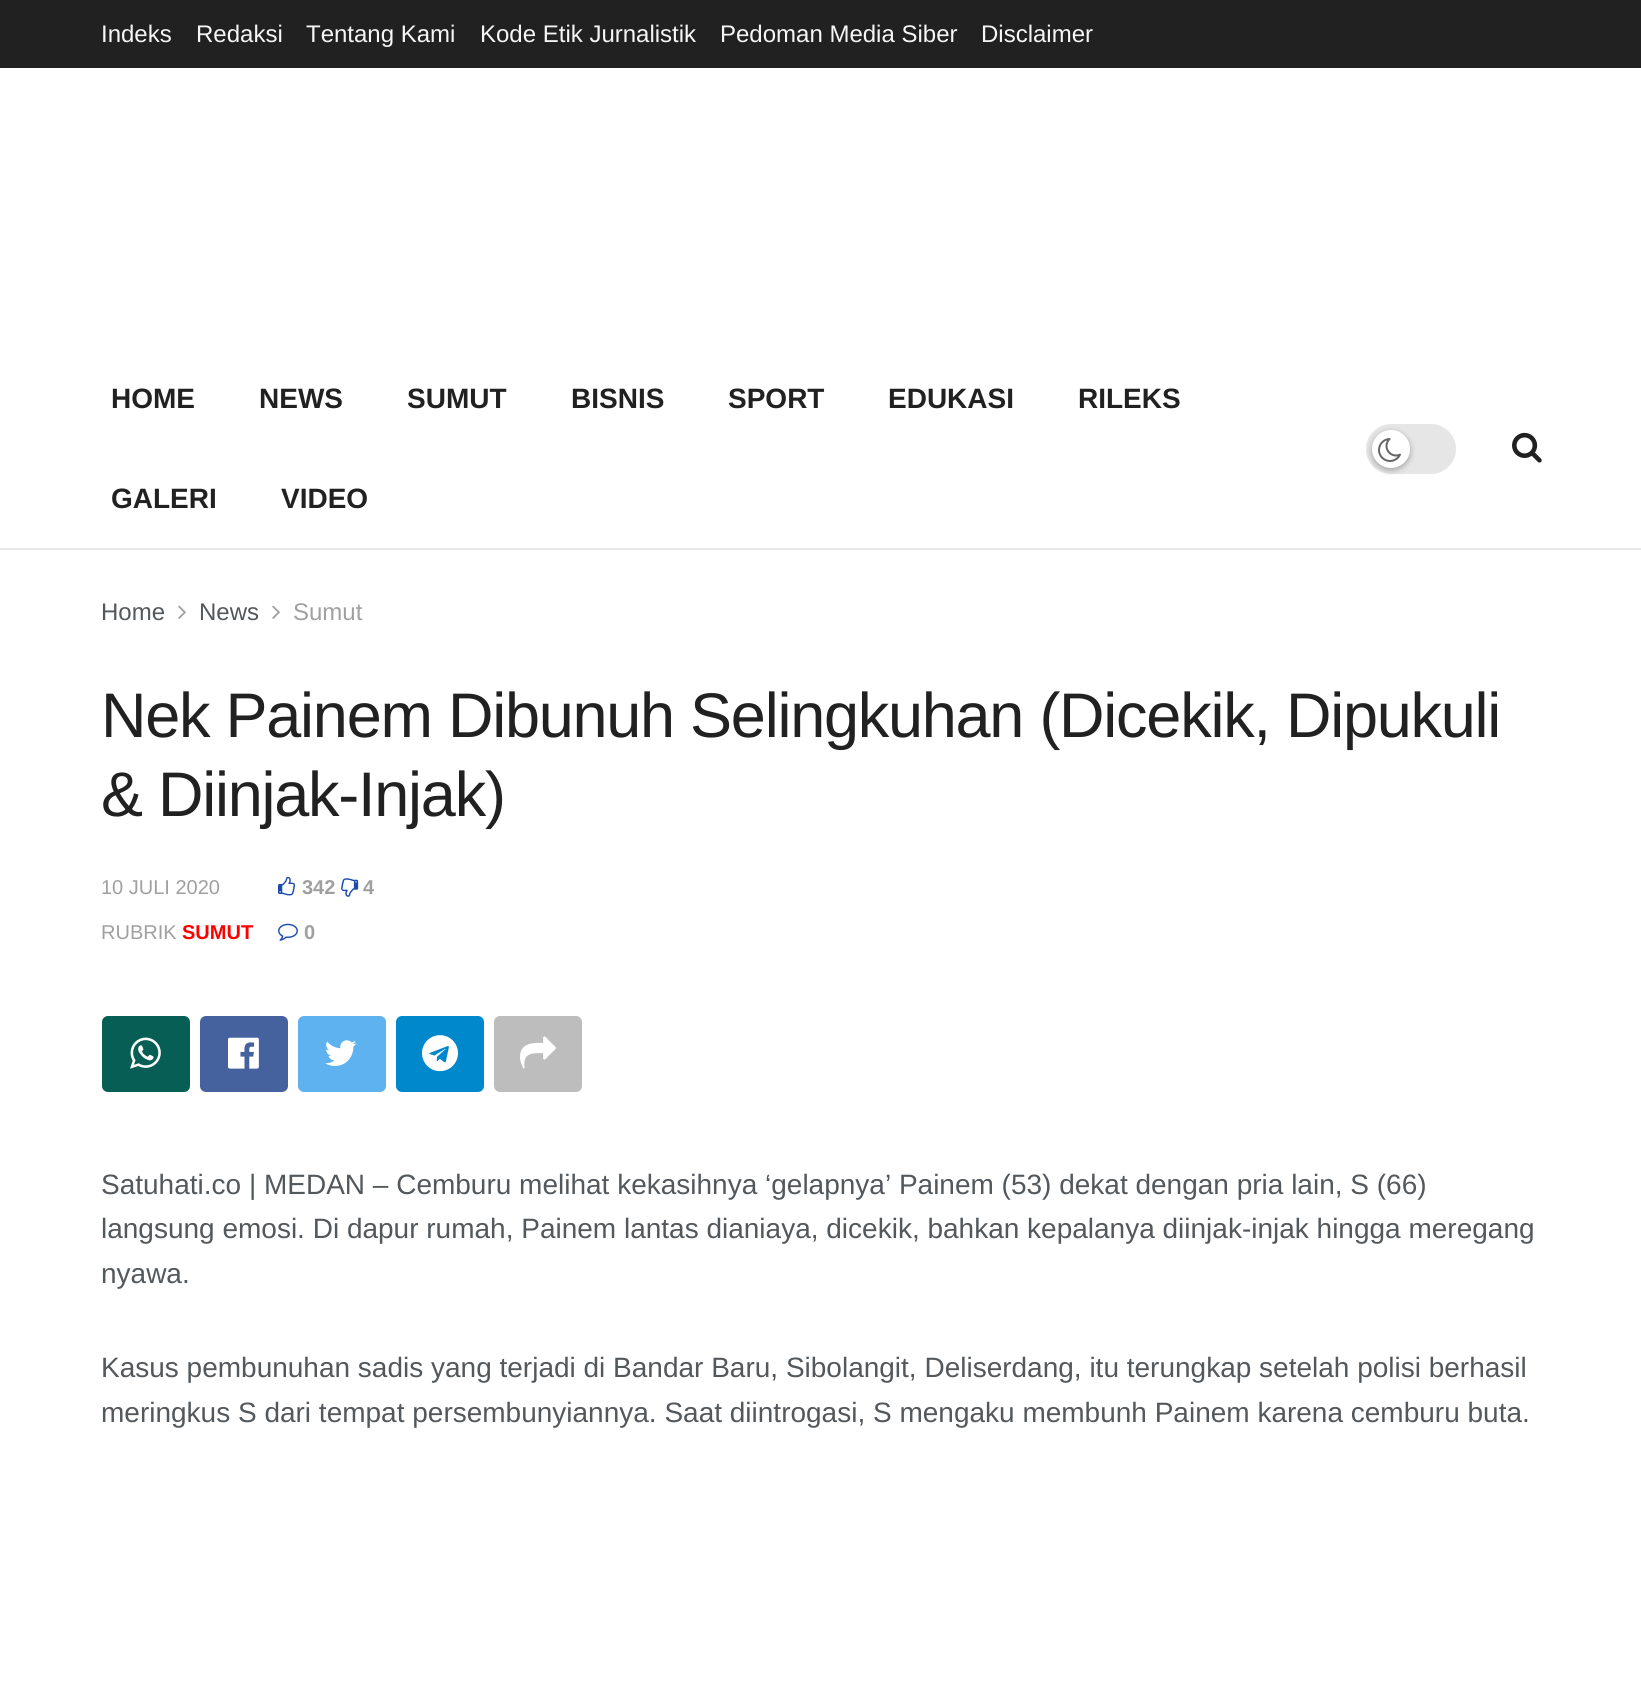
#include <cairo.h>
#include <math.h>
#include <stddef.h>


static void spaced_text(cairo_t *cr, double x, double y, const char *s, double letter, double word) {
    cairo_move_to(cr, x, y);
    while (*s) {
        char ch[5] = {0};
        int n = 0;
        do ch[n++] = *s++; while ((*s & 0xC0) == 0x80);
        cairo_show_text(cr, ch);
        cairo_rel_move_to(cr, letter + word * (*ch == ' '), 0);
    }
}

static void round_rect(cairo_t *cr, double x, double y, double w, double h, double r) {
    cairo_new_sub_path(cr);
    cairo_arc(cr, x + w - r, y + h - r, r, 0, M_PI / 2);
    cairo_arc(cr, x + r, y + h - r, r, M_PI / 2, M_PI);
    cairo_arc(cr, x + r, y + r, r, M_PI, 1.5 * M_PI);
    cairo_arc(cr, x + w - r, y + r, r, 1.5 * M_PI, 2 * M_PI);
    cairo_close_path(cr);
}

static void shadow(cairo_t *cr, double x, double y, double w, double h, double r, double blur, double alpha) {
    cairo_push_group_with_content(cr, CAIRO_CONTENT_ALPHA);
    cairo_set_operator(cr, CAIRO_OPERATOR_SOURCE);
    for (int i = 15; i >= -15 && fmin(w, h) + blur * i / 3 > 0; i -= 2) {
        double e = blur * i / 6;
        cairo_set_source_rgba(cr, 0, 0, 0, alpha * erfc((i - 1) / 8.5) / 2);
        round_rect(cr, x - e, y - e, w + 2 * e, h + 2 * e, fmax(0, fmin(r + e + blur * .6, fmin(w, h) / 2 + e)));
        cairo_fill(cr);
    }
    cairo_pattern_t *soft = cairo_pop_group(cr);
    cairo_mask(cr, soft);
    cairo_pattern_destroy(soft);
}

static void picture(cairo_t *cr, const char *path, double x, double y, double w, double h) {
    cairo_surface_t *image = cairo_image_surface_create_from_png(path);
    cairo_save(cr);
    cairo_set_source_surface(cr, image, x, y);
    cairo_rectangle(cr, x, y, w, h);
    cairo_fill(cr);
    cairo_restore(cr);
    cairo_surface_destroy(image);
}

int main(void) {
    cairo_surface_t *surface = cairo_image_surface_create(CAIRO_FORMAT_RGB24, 1641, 1705);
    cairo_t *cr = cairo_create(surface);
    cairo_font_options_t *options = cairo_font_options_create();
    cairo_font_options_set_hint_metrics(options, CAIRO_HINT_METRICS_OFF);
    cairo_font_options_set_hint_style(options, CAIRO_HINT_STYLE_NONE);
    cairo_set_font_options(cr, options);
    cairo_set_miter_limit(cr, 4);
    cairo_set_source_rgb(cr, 1, 1, 1);
    cairo_paint(cr);
    cairo_set_source_rgb(cr, 0.129, 0.129, 0.129);
    cairo_rectangle(cr, 0, 0, 1641, 68);
    cairo_fill(cr);
    cairo_select_font_face(cr, "Liberation Sans", CAIRO_FONT_SLANT_NORMAL, CAIRO_FONT_WEIGHT_NORMAL);
    cairo_set_font_size(cr, 24);
    cairo_set_source_rgb(cr, 0.961, 0.961, 0.961);
    cairo_move_to(cr, 101, 42);
    cairo_show_text(cr, "Indeks");
    cairo_move_to(cr, 196, 42);
    cairo_show_text(cr, "Redaksi");
    cairo_move_to(cr, 306, 42);
    cairo_show_text(cr, "Tentang Kami");
    cairo_move_to(cr, 480, 42);
    cairo_show_text(cr, "Kode Etik Jurnalistik");
    cairo_move_to(cr, 720, 42);
    cairo_show_text(cr, "Pedoman Media Siber");
    cairo_move_to(cr, 981, 42);
    cairo_show_text(cr, "Disclaimer");
    cairo_set_source_rgb(cr, 0.91, 0.91, 0.91);
    cairo_rectangle(cr, 0, 548, 1641, 2);
    cairo_fill(cr);
    cairo_select_font_face(cr, "Liberation Sans", CAIRO_FONT_SLANT_NORMAL, CAIRO_FONT_WEIGHT_BOLD);
    cairo_set_font_size(cr, 28);
    cairo_set_source_rgb(cr, 0.129, 0.129, 0.129);
    cairo_move_to(cr, 111, 408);
    cairo_show_text(cr, "HOME");
    cairo_move_to(cr, 259, 408);
    cairo_show_text(cr, "NEWS");
    cairo_move_to(cr, 407, 408);
    cairo_show_text(cr, "SUMUT");
    cairo_move_to(cr, 571, 408);
    cairo_show_text(cr, "BISNIS");
    cairo_move_to(cr, 728, 408);
    cairo_show_text(cr, "SPORT");
    cairo_move_to(cr, 888, 408);
    cairo_show_text(cr, "EDUKASI");
    cairo_move_to(cr, 1078, 408);
    cairo_show_text(cr, "RILEKS");
    cairo_move_to(cr, 111, 508);
    cairo_show_text(cr, "GALERI");
    cairo_move_to(cr, 281, 508);
    cairo_show_text(cr, "VIDEO");
    cairo_set_source_rgb(cr, 0.902, 0.902, 0.902);
    round_rect(cr, 1366, 424, 90, 50, 25);
    cairo_fill(cr);
    cairo_set_source_rgb(cr, 0, 0, 0);
    shadow(cr, 1372, 432, 38, 38, 19, 3, 0.3);
    cairo_set_source_rgb(cr, 1, 1, 1);
    cairo_arc(cr, 1391, 449, 19, 0, 2 * M_PI);
    cairo_fill(cr);
    picture(cr, "img1.png", 1378, 438, 23, 24);
    picture(cr, "img2.png", 1512, 432, 30, 31);
    cairo_select_font_face(cr, "Liberation Sans", CAIRO_FONT_SLANT_NORMAL, CAIRO_FONT_WEIGHT_NORMAL);
    cairo_set_font_size(cr, 24);
    cairo_set_source_rgb(cr, 0.325, 0.345, 0.361);
    cairo_move_to(cr, 101, 620);
    cairo_show_text(cr, "Home");
    picture(cr, "img3.png", 178, 605, 8, 14);
    cairo_move_to(cr, 199, 620);
    cairo_show_text(cr, "News");
    picture(cr, "img3.png", 272, 605, 8, 14);
    cairo_set_source_rgb(cr, 0.627, 0.627, 0.627);
    cairo_move_to(cr, 293, 620);
    cairo_show_text(cr, "Sumut");
    cairo_set_font_size(cr, 63);
    cairo_set_source_rgb(cr, 0.129, 0.129, 0.129);
    spaced_text(cr, 101, 737, "Nek Painem Dibunuh Selingkuhan (Dicekik, Dipukuli", -1.25, 0);
    spaced_text(cr, 101, 816, "& Diinjak-Injak)", -1.25, 0);
    cairo_set_font_size(cr, 20);
    cairo_set_source_rgb(cr, 0.627, 0.627, 0.627);
    cairo_move_to(cr, 101, 894);
    cairo_show_text(cr, "10 JULI 2020");
    cairo_move_to(cr, 101, 939);
    cairo_show_text(cr, "RUBRIK");
    cairo_select_font_face(cr, "Liberation Sans", CAIRO_FONT_SLANT_NORMAL, CAIRO_FONT_WEIGHT_BOLD);
    cairo_set_source_rgb(cr, 1, 0, 0);
    cairo_move_to(cr, 182, 939);
    cairo_show_text(cr, "SUMUT");
    picture(cr, "img4.png", 278, 876, 18, 20);
    cairo_set_source_rgb(cr, 0.627, 0.627, 0.627);
    cairo_move_to(cr, 302, 894);
    cairo_show_text(cr, "342");
    picture(cr, "img5.png", 341, 878, 18, 19);
    cairo_move_to(cr, 363, 894);
    cairo_show_text(cr, "4");
    picture(cr, "img6.png", 278, 923, 20, 18);
    cairo_move_to(cr, 304, 939);
    cairo_show_text(cr, "0");
    cairo_set_source_rgb(cr, 0.027, 0.369, 0.329);
    round_rect(cr, 102, 1016, 88, 76, 6);
    cairo_fill(cr);
    picture(cr, "img7.png", 130, 1037, 31, 32);
    cairo_set_source_rgb(cr, 0.271, 0.384, 0.624);
    round_rect(cr, 200, 1016, 88, 76, 6);
    cairo_fill(cr);
    picture(cr, "img8.png", 228, 1037, 31, 32);
    cairo_set_source_rgb(cr, 0.369, 0.698, 0.937);
    round_rect(cr, 298, 1016, 88, 76, 6);
    cairo_fill(cr);
    picture(cr, "img9.png", 325, 1040, 32, 26);
    cairo_set_source_rgb(cr, 0, 0.533, 0.8);
    round_rect(cr, 396, 1016, 88, 76, 6);
    cairo_fill(cr);
    picture(cr, "img10.png", 422, 1035, 36, 37);
    cairo_set_source_rgb(cr, 0.741, 0.741, 0.741);
    round_rect(cr, 494, 1016, 88, 76, 6);
    cairo_fill(cr);
    picture(cr, "img11.png", 520, 1036, 36, 33);
    cairo_select_font_face(cr, "Liberation Sans", CAIRO_FONT_SLANT_NORMAL, CAIRO_FONT_WEIGHT_NORMAL);
    cairo_set_font_size(cr, 28);
    cairo_set_source_rgb(cr, 0.325, 0.345, 0.361);
    cairo_move_to(cr, 101, 1194);
    cairo_show_text(cr, "Satuhati.co | MEDAN – Cemburu melihat kekasihnya ‘gelapnya’ Painem (53) dekat dengan pria lain, S (66)");
    cairo_move_to(cr, 101, 1238);
    cairo_show_text(cr, "langsung emosi. Di dapur rumah, Painem lantas dianiaya, dicekik, bahkan kepalanya diinjak-injak hingga meregang");
    cairo_move_to(cr, 101, 1283);
    cairo_show_text(cr, "nyawa.");
    cairo_move_to(cr, 101, 1377);
    cairo_show_text(cr, "Kasus pembunuhan sadis yang terjadi di Bandar Baru, Sibolangit, Deliserdang, itu terungkap setelah polisi berhasil");
    cairo_move_to(cr, 101, 1422);
    cairo_show_text(cr, "meringkus S dari tempat persembunyiannya. Saat diintrogasi, S mengaku membunh Painem karena cemburu buta.");
    cairo_surface_write_to_png(surface, "page.png");
    cairo_font_options_destroy(options);
    cairo_destroy(cr);
    cairo_surface_destroy(surface);
    return 0;
}
